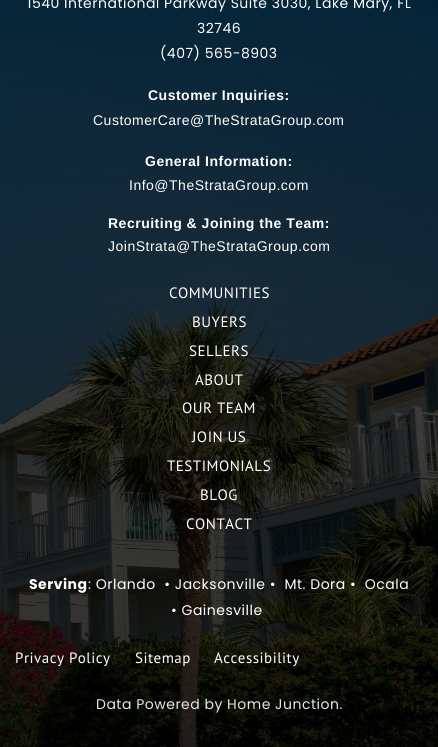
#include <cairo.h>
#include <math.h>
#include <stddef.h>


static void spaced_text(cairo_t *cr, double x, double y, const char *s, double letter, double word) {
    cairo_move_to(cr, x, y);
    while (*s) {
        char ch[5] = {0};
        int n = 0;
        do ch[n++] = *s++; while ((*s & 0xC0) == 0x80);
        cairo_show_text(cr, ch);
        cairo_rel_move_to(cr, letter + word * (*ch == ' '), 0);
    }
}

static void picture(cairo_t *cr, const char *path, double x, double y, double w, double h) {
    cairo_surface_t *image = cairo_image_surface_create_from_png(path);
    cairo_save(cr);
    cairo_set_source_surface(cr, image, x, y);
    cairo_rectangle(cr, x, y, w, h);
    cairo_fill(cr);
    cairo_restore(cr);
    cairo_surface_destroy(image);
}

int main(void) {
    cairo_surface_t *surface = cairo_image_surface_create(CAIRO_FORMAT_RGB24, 438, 747);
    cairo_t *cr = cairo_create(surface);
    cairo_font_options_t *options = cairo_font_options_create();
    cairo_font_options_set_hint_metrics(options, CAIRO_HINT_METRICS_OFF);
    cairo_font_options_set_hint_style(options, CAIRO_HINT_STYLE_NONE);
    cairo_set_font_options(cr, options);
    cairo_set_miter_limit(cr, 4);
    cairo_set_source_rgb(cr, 1, 1, 1);
    cairo_paint(cr);
    picture(cr, "img1.png", 0, 0, 438, 747);
    cairo_select_font_face(cr, "Poppins", CAIRO_FONT_SLANT_NORMAL, CAIRO_FONT_WEIGHT_NORMAL);
    cairo_set_font_size(cr, 14);
    cairo_set_source_rgb(cr, 1, 1, 1);
    spaced_text(cr, 27, 8, "1540 International Parkway Suite 3030, Lake Mary, FL", 0.5, 0);
    spaced_text(cr, 197, 33, "32746", 0.5, 0);
    spaced_text(cr, 160, 58, "(407) 565-8903", 0.5, 0);
    cairo_select_font_face(cr, "Liberation Sans", CAIRO_FONT_SLANT_NORMAL, CAIRO_FONT_WEIGHT_BOLD);
    spaced_text(cr, 148, 100, "Customer Inquiries:", 0.5, 0);
    cairo_select_font_face(cr, "Liberation Sans", CAIRO_FONT_SLANT_NORMAL, CAIRO_FONT_WEIGHT_NORMAL);
    spaced_text(cr, 93, 125, "CustomerCare@TheStrataGroup.com", 0.5, 0);
    cairo_select_font_face(cr, "Liberation Sans", CAIRO_FONT_SLANT_NORMAL, CAIRO_FONT_WEIGHT_BOLD);
    spaced_text(cr, 145, 166, "General Information:", 0.5, 0);
    cairo_select_font_face(cr, "Liberation Sans", CAIRO_FONT_SLANT_NORMAL, CAIRO_FONT_WEIGHT_NORMAL);
    spaced_text(cr, 129, 190, "Info@TheStrataGroup.com", 0.5, 0);
    cairo_select_font_face(cr, "Liberation Sans", CAIRO_FONT_SLANT_NORMAL, CAIRO_FONT_WEIGHT_BOLD);
    spaced_text(cr, 108, 228, "Recruiting & Joining the Team:", 0.5, 0);
    cairo_select_font_face(cr, "Liberation Sans", CAIRO_FONT_SLANT_NORMAL, CAIRO_FONT_WEIGHT_NORMAL);
    spaced_text(cr, 108, 251, "JoinStrata@TheStrataGroup.com", 0.5, 0);
    cairo_select_font_face(cr, "PT Sans", CAIRO_FONT_SLANT_NORMAL, CAIRO_FONT_WEIGHT_NORMAL);
    cairo_set_font_size(cr, 15);
    spaced_text(cr, 169, 298, "COMMUNITIES", 0.5, 0);
    spaced_text(cr, 192, 327, "BUYERS", 0.5, 0);
    spaced_text(cr, 189, 356, "SELLERS", 0.5, 0);
    spaced_text(cr, 195, 385, "ABOUT", 0.5, 0);
    spaced_text(cr, 182, 413, "OUR TEAM", 0.5, 0);
    spaced_text(cr, 192, 442, "JOIN US", 0.5, 0);
    spaced_text(cr, 167, 471, "TESTIMONIALS", 0.5, 0);
    spaced_text(cr, 200, 500, "BLOG", 0.5, 0);
    spaced_text(cr, 186, 529, "CONTACT", 0.5, 0);
    cairo_select_font_face(cr, "Poppins", CAIRO_FONT_SLANT_NORMAL, CAIRO_FONT_WEIGHT_BOLD);
    cairo_set_font_size(cr, 14);
    spaced_text(cr, 29, 589, "Serving", 0.5, 0);
    cairo_select_font_face(cr, "Poppins", CAIRO_FONT_SLANT_NORMAL, CAIRO_FONT_WEIGHT_NORMAL);
    spaced_text(cr, 88, 589, ": Orlando  • Jacksonville •  Mt. Dora •  Ocala", 0.5, 0);
    spaced_text(cr, 171, 615, "• Gainesville", 0.5, 0);
    cairo_select_font_face(cr, "PT Sans", CAIRO_FONT_SLANT_NORMAL, CAIRO_FONT_WEIGHT_NORMAL);
    cairo_set_font_size(cr, 15);
    spaced_text(cr, 15, 663, "Privacy Policy", 0.5, 0);
    spaced_text(cr, 135, 663, "Sitemap", 0.5, 0);
    spaced_text(cr, 214, 663, "Accessibility", 0.5, 0);
    cairo_select_font_face(cr, "Poppins", CAIRO_FONT_SLANT_NORMAL, CAIRO_FONT_WEIGHT_NORMAL);
    cairo_set_font_size(cr, 14);
    cairo_set_source_rgb(cr, 0.902, 0.906, 0.902);
    spaced_text(cr, 96, 709, "Data Powered by Home Junction.", 0.5, 0);
    cairo_surface_write_to_png(surface, "page.png");
    cairo_font_options_destroy(options);
    cairo_destroy(cr);
    cairo_surface_destroy(surface);
    return 0;
}
